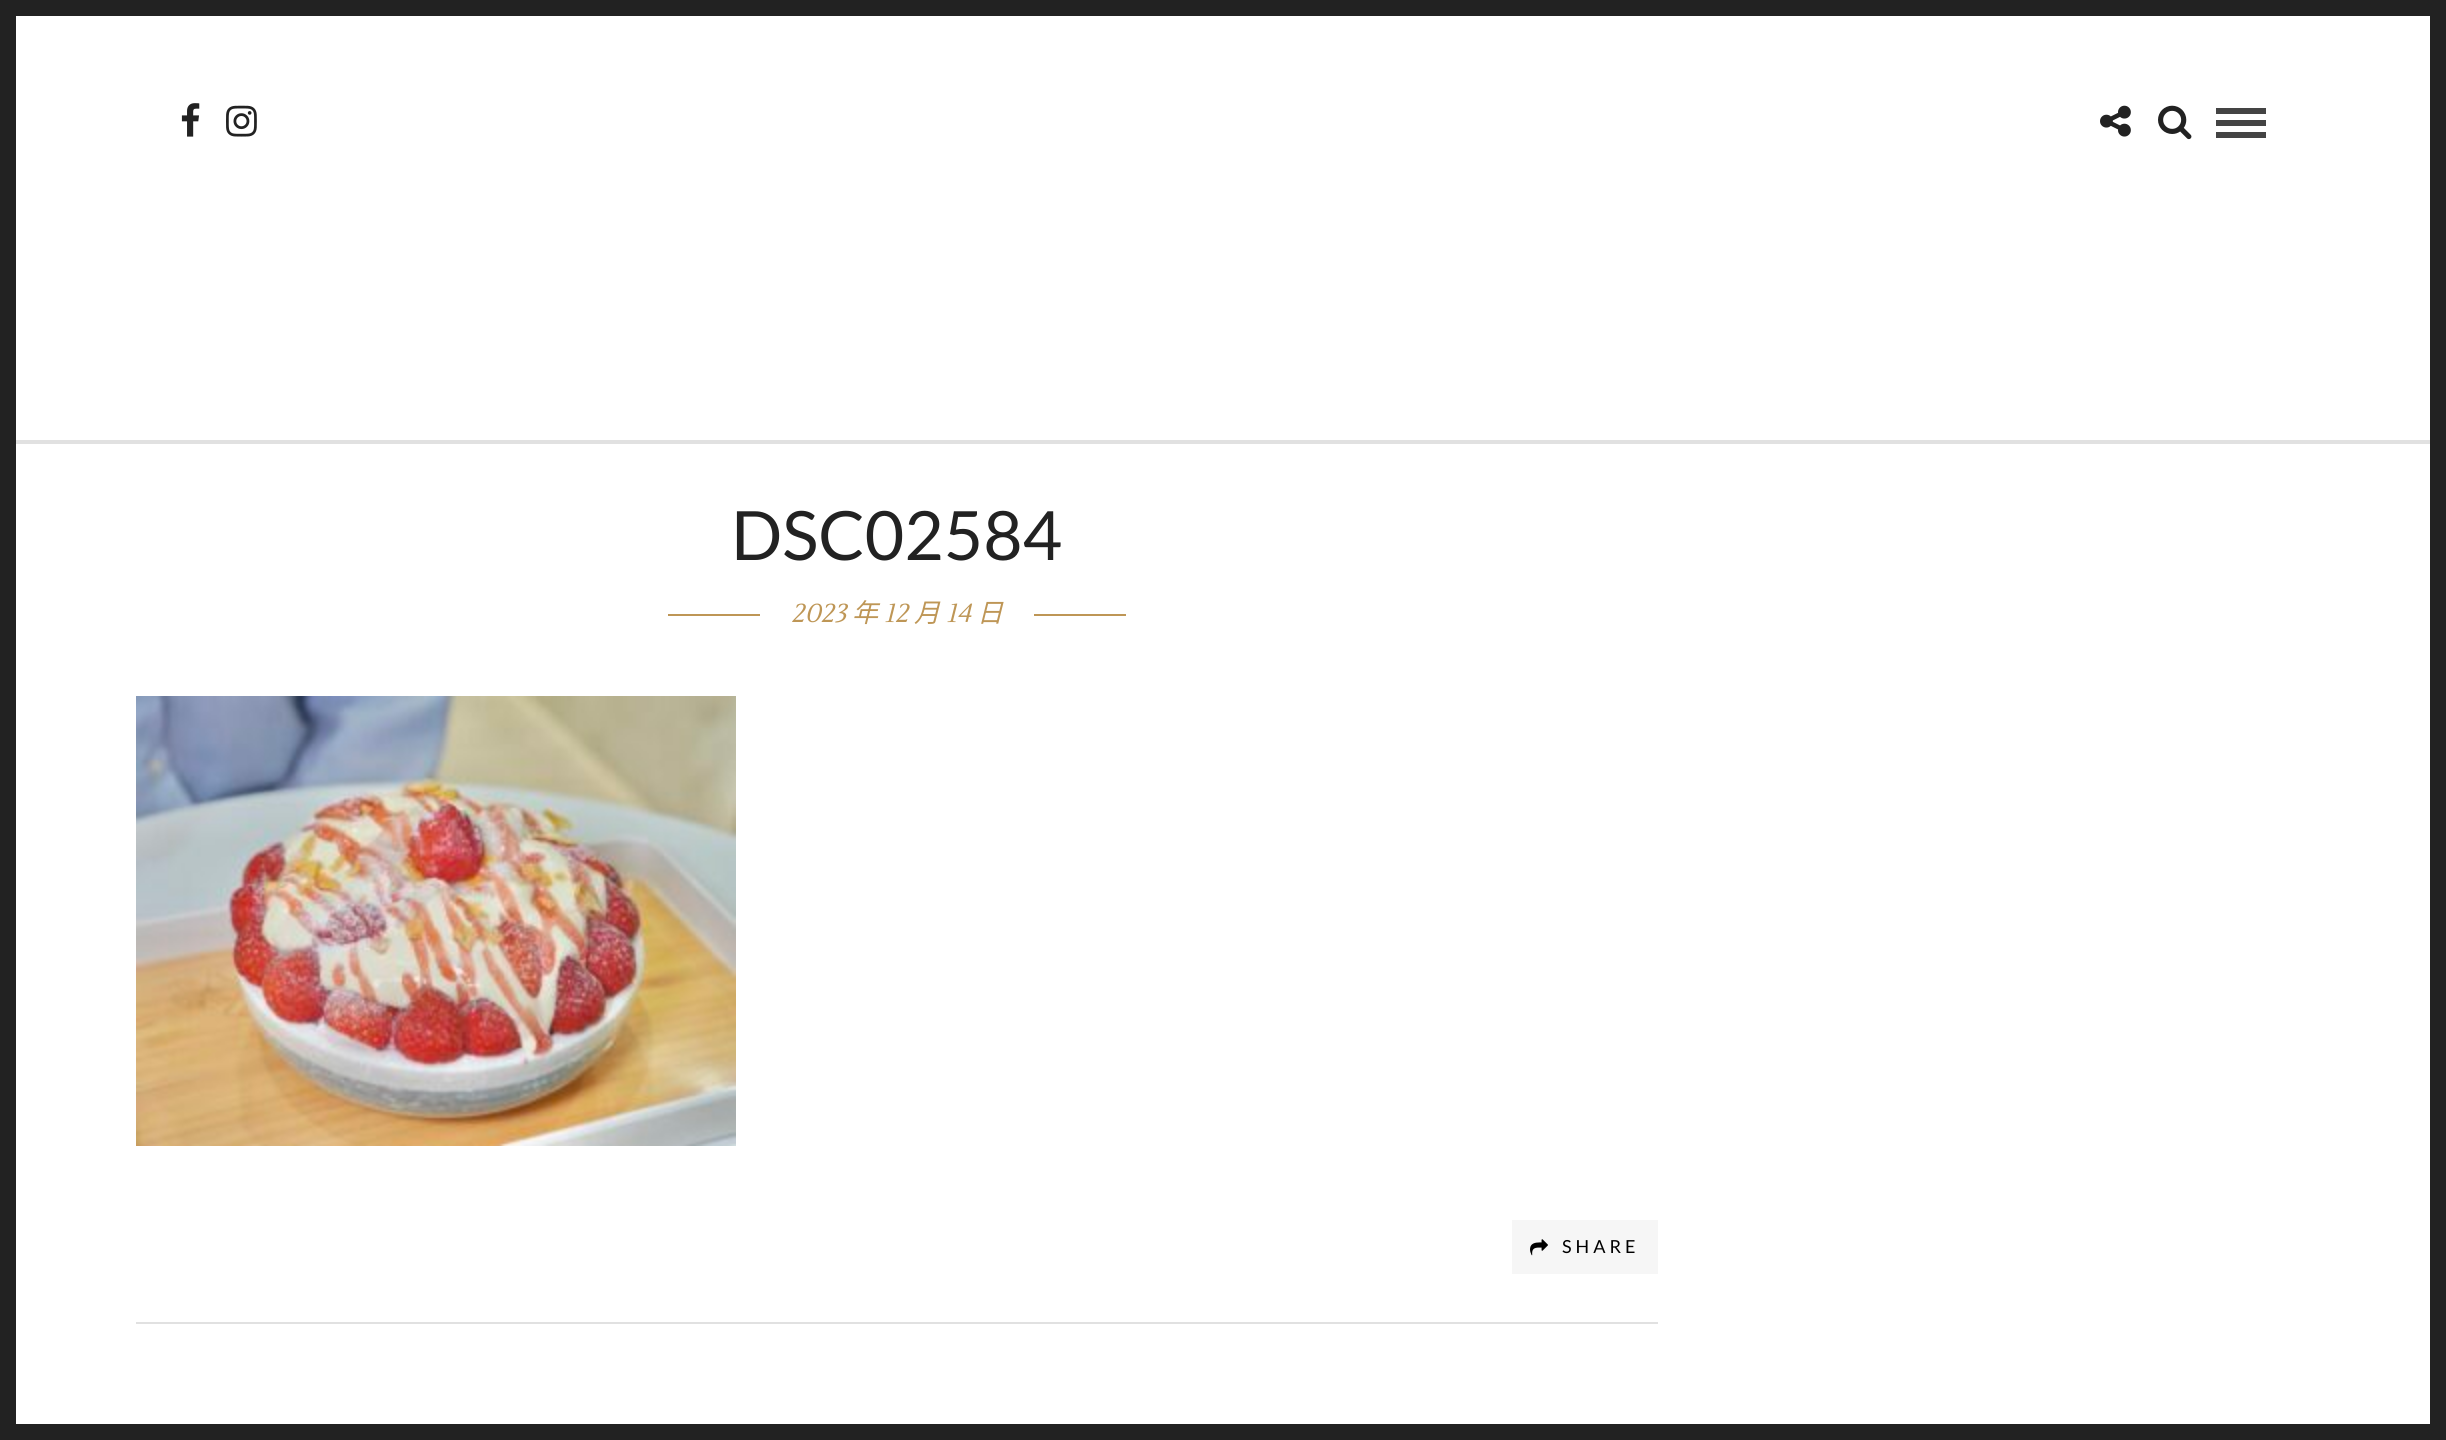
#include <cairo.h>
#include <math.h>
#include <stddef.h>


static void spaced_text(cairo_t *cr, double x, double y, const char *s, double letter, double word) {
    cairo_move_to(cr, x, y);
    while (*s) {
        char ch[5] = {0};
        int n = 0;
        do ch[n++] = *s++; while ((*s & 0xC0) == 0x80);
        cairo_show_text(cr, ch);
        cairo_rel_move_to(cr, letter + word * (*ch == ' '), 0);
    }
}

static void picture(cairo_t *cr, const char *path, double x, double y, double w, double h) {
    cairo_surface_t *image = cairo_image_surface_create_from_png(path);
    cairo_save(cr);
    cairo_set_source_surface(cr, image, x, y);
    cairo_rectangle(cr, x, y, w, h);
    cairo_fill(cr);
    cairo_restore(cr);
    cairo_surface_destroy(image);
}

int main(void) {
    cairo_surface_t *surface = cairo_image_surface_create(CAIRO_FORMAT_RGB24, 2446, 1440);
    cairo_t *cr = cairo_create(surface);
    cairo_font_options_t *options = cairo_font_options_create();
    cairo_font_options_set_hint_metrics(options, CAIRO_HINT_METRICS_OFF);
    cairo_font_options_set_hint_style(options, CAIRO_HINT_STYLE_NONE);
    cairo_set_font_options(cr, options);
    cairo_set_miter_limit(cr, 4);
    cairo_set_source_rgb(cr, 1, 1, 1);
    cairo_paint(cr);
    cairo_set_source_rgb(cr, 0.133, 0.133, 0.133);
    cairo_rectangle(cr, 0, 0, 16, 1440);
    cairo_fill(cr);
    cairo_rectangle(cr, 16, 0, 2414, 16);
    cairo_fill(cr);
    cairo_rectangle(cr, 2430, 0, 16, 1440);
    cairo_fill(cr);
    cairo_set_source_rgb(cr, 0.882, 0.882, 0.882);
    cairo_rectangle(cr, 16, 440, 2414, 4);
    cairo_fill(cr);
    picture(cr, "img1.png", 181, 103, 19, 34);
    picture(cr, "img2.png", 226, 105, 31, 32);
    picture(cr, "img3.png", 2100, 105, 31, 32);
    picture(cr, "img4.png", 2158, 105, 34, 35);
    cairo_set_source_rgb(cr, 0.267, 0.267, 0.267);
    cairo_rectangle(cr, 2216, 108, 50, 6);
    cairo_fill(cr);
    cairo_rectangle(cr, 2216, 120, 50, 6);
    cairo_fill(cr);
    cairo_rectangle(cr, 2216, 132, 50, 6);
    cairo_fill(cr);
    cairo_select_font_face(cr, "Lato", CAIRO_FONT_SLANT_NORMAL, CAIRO_FONT_WEIGHT_NORMAL);
    cairo_set_font_size(cr, 68);
    cairo_set_source_rgb(cr, 0.133, 0.133, 0.133);
    cairo_move_to(cr, 731, 560);
    cairo_show_text(cr, "DSC02584");
    cairo_set_source_rgb(cr, 0.745, 0.588, 0.337);
    cairo_rectangle(cr, 668, 614, 458, 2);
    cairo_fill(cr);
    cairo_set_source_rgb(cr, 1, 1, 1);
    cairo_rectangle(cr, 760, 614, 274, 2);
    cairo_fill(cr);
    cairo_select_font_face(cr, "Lustria", CAIRO_FONT_SLANT_ITALIC, CAIRO_FONT_WEIGHT_NORMAL);
    cairo_set_font_size(cr, 26);
    cairo_set_source_rgb(cr, 0.745, 0.588, 0.337);
    cairo_move_to(cr, 791, 622);
    cairo_show_text(cr, "2023");
    cairo_select_font_face(cr, "Noto Sans CJK TC", CAIRO_FONT_SLANT_ITALIC, CAIRO_FONT_WEIGHT_NORMAL);
    cairo_move_to(cr, 852, 622);
    cairo_show_text(cr, "年");
    cairo_select_font_face(cr, "Lustria", CAIRO_FONT_SLANT_ITALIC, CAIRO_FONT_WEIGHT_NORMAL);
    cairo_move_to(cr, 884, 622);
    cairo_show_text(cr, "12");
    cairo_select_font_face(cr, "Noto Sans CJK TC", CAIRO_FONT_SLANT_ITALIC, CAIRO_FONT_WEIGHT_NORMAL);
    cairo_move_to(cr, 914, 622);
    cairo_show_text(cr, "月");
    cairo_select_font_face(cr, "Lustria", CAIRO_FONT_SLANT_ITALIC, CAIRO_FONT_WEIGHT_NORMAL);
    cairo_move_to(cr, 946, 622);
    cairo_show_text(cr, "14");
    cairo_select_font_face(cr, "Noto Sans CJK TC", CAIRO_FONT_SLANT_ITALIC, CAIRO_FONT_WEIGHT_NORMAL);
    cairo_move_to(cr, 977, 622);
    cairo_show_text(cr, "日");
    picture(cr, "img5.png", 136, 696, 600, 450);
    cairo_set_source_rgb(cr, 0.961, 0.961, 0.961);
    cairo_rectangle(cr, 1512, 1220, 146, 54);
    cairo_fill(cr);
    picture(cr, "img6.png", 1530, 1239, 18, 17);
    cairo_select_font_face(cr, "Lato", CAIRO_FONT_SLANT_NORMAL, CAIRO_FONT_WEIGHT_NORMAL);
    cairo_set_font_size(cr, 18);
    cairo_set_source_rgb(cr, 0, 0, 0);
    spaced_text(cr, 1562, 1253, "SHARE", 4, 0);
    cairo_set_source_rgb(cr, 0.882, 0.882, 0.882);
    cairo_rectangle(cr, 136, 1322, 1522, 2);
    cairo_fill(cr);
    cairo_set_source_rgb(cr, 0.133, 0.133, 0.133);
    cairo_rectangle(cr, 16, 1424, 2414, 16);
    cairo_fill(cr);
    cairo_surface_write_to_png(surface, "page.png");
    cairo_font_options_destroy(options);
    cairo_destroy(cr);
    cairo_surface_destroy(surface);
    return 0;
}
